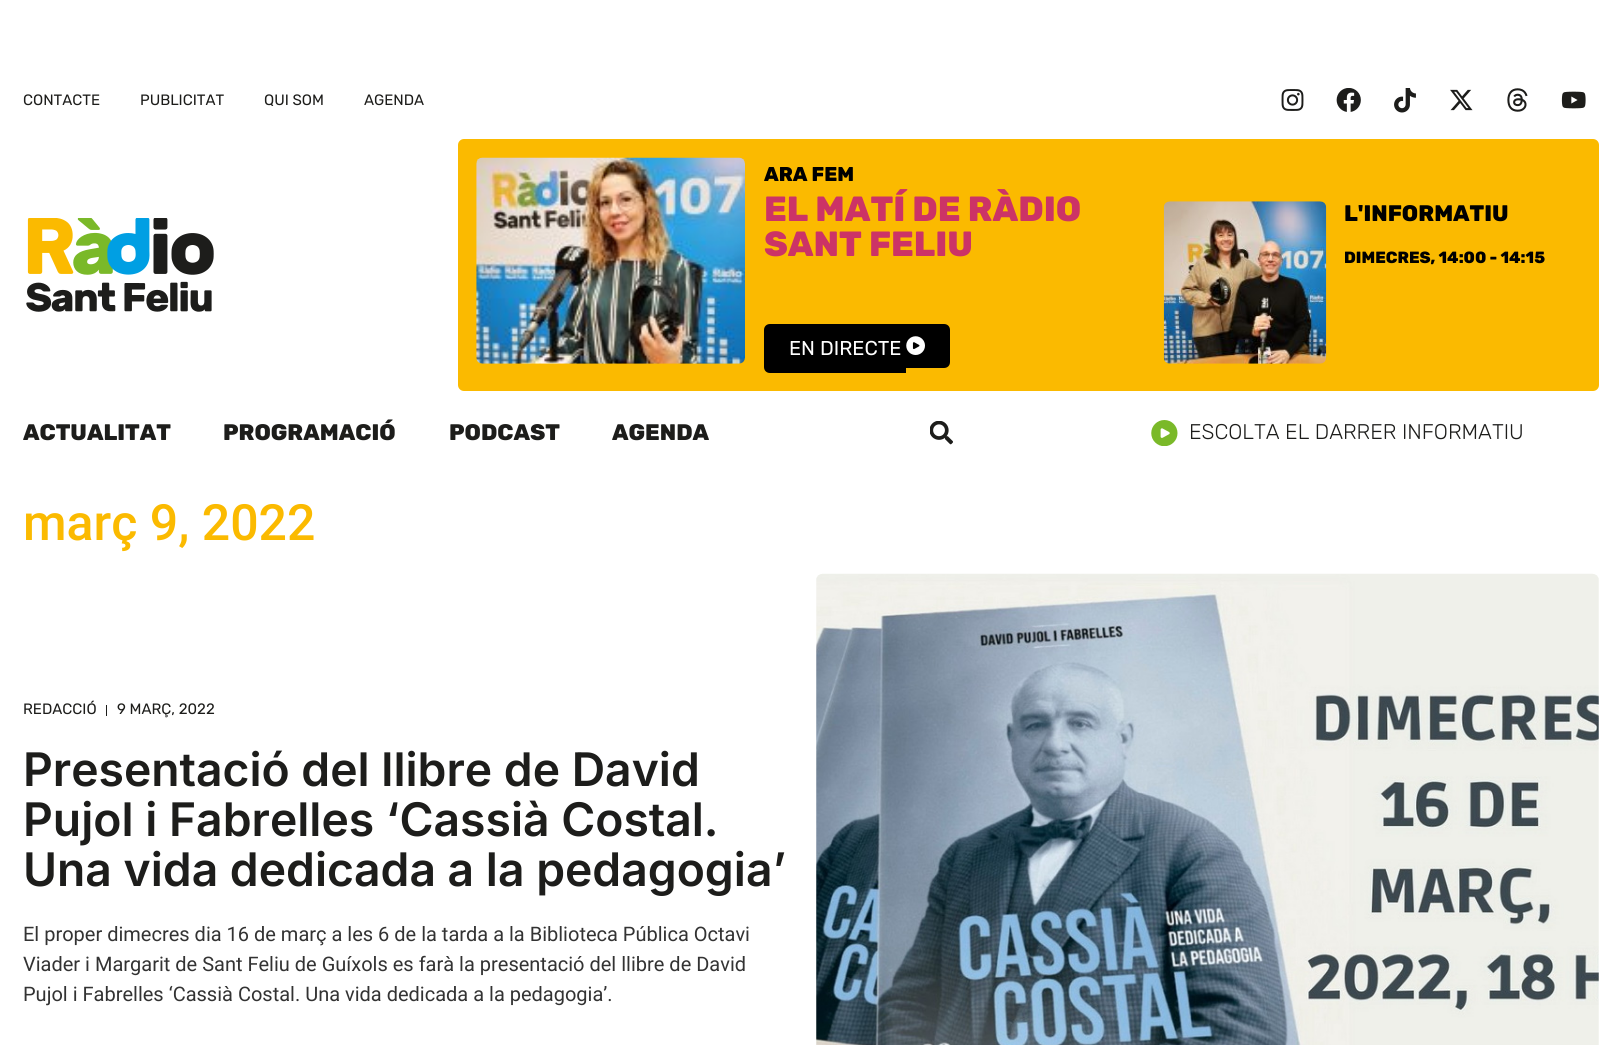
#include <cairo.h>
#include <math.h>
#include <stddef.h>


static void round_rect(cairo_t *cr, double x, double y, double w, double h, double r) {
    cairo_new_sub_path(cr);
    cairo_arc(cr, x + w - r, y + h - r, r, 0, M_PI / 2);
    cairo_arc(cr, x + r, y + h - r, r, M_PI / 2, M_PI);
    cairo_arc(cr, x + r, y + r, r, M_PI, 1.5 * M_PI);
    cairo_arc(cr, x + w - r, y + r, r, 1.5 * M_PI, 2 * M_PI);
    cairo_close_path(cr);
}

static void picture(cairo_t *cr, const char *path, double x, double y, double w, double h) {
    cairo_surface_t *image = cairo_image_surface_create_from_png(path);
    cairo_save(cr);
    cairo_set_source_surface(cr, image, x, y);
    cairo_rectangle(cr, x, y, w, h);
    cairo_fill(cr);
    cairo_restore(cr);
    cairo_surface_destroy(image);
}

int main(void) {
    cairo_surface_t *surface = cairo_image_surface_create(CAIRO_FORMAT_RGB24, 1621, 1045);
    cairo_t *cr = cairo_create(surface);
    cairo_font_options_t *options = cairo_font_options_create();
    cairo_font_options_set_hint_metrics(options, CAIRO_HINT_METRICS_OFF);
    cairo_font_options_set_hint_style(options, CAIRO_HINT_STYLE_NONE);
    cairo_set_font_options(cr, options);
    cairo_set_miter_limit(cr, 4);
    cairo_set_source_rgb(cr, 1, 1, 1);
    cairo_paint(cr);
    cairo_select_font_face(cr, "Rubik", CAIRO_FONT_SLANT_NORMAL, CAIRO_FONT_WEIGHT_NORMAL);
    cairo_set_font_size(cr, 15);
    cairo_set_source_rgb(cr, 0.114, 0.114, 0.106);
    cairo_move_to(cr, 23, 105);
    cairo_show_text(cr, "CONTACTE");
    cairo_move_to(cr, 140, 105);
    cairo_show_text(cr, "PUBLICITAT");
    cairo_move_to(cr, 264, 105);
    cairo_show_text(cr, "QUI SOM");
    cairo_move_to(cr, 364, 105);
    cairo_show_text(cr, "AGENDA");
    picture(cr, "img1.png", 1281, 89, 23, 22);
    picture(cr, "img2.png", 1336, 88, 25, 24);
    picture(cr, "img3.png", 1394, 88, 22, 25);
    picture(cr, "img4.png", 1450, 89, 23, 22);
    picture(cr, "img5.png", 1507, 88, 21, 24);
    picture(cr, "img6.png", 1561, 91, 25, 18);
    picture(cr, "img7.png", 26, 218, 188, 94);
    cairo_set_source_rgb(cr, 0.984, 0.729, 0);
    round_rect(cr, 458, 139, 1141, 252, 6);
    cairo_fill(cr);
    picture(cr, "img8.png", 476, 157, 269, 207);
    cairo_select_font_face(cr, "Rubik ExtraBold", CAIRO_FONT_SLANT_NORMAL, CAIRO_FONT_WEIGHT_NORMAL);
    cairo_set_font_size(cr, 20);
    cairo_set_source_rgb(cr, 0, 0, 0);
    cairo_move_to(cr, 764, 181);
    cairo_show_text(cr, "ARA FEM");
    cairo_set_font_size(cr, 35);
    cairo_set_source_rgb(cr, 0.8, 0.2, 0.4);
    cairo_move_to(cr, 764, 221);
    cairo_show_text(cr, "EL MATÍ DE RÀDIO");
    cairo_move_to(cr, 764, 256);
    cairo_show_text(cr, "SANT FELIU");
    cairo_set_source_rgb(cr, 0, 0, 0);
    cairo_new_path(cr);
    cairo_move_to(cr, 770, 324);
    cairo_line_to(cr, 901, 324);
    cairo_line_to(cr, 901, 373);
    cairo_line_to(cr, 770, 373);
    cairo_curve_to(cr, 766.5, 373, 764, 370.5, 764, 367);
    cairo_line_to(cr, 764, 330);
    cairo_curve_to(cr, 764, 326.5, 766.5, 324, 770, 324);
    cairo_close_path(cr);
    cairo_fill(cr);
    cairo_select_font_face(cr, "Rubik", CAIRO_FONT_SLANT_NORMAL, CAIRO_FONT_WEIGHT_NORMAL);
    cairo_set_font_size(cr, 20);
    cairo_set_source_rgb(cr, 1, 1, 1);
    cairo_move_to(cr, 789, 355);
    cairo_show_text(cr, "EN DIRECTE");
    cairo_set_source_rgb(cr, 0, 0, 0);
    cairo_rectangle(cr, 901, 324, 5, 49);
    cairo_fill(cr);
    cairo_new_path(cr);
    cairo_move_to(cr, 906, 324);
    cairo_line_to(cr, 944, 324);
    cairo_curve_to(cr, 947.5, 324, 950, 326.5, 950, 330);
    cairo_line_to(cr, 950, 362);
    cairo_curve_to(cr, 950, 365.5, 947.5, 368, 944, 368);
    cairo_line_to(cr, 906, 368);
    cairo_close_path(cr);
    cairo_fill(cr);
    picture(cr, "img9.png", 906, 336, 19, 19);
    picture(cr, "img10.png", 1163, 201, 164, 163);
    cairo_select_font_face(cr, "Rubik ExtraBold", CAIRO_FONT_SLANT_NORMAL, CAIRO_FONT_WEIGHT_NORMAL);
    cairo_set_font_size(cr, 22.5);
    cairo_move_to(cr, 1344, 221);
    cairo_show_text(cr, "L'INFORMATIU");
    cairo_set_font_size(cr, 16.25);
    cairo_move_to(cr, 1344, 263);
    cairo_show_text(cr, "DIMECRES, 14:00 - 14:15");
    cairo_set_font_size(cr, 22.5);
    cairo_set_source_rgb(cr, 0.114, 0.114, 0.106);
    cairo_move_to(cr, 23, 440);
    cairo_show_text(cr, "ACTUALITAT");
    cairo_move_to(cr, 223, 440);
    cairo_show_text(cr, "PROGRAMACIÓ");
    cairo_move_to(cr, 449, 440);
    cairo_show_text(cr, "PODCAST");
    cairo_move_to(cr, 612, 440);
    cairo_show_text(cr, "AGENDA");
    picture(cr, "img11.png", 930, 421, 23, 24);
    picture(cr, "img12.png", 1151, 420, 27, 26);
    cairo_select_font_face(cr, "Rubik Light", CAIRO_FONT_SLANT_NORMAL, CAIRO_FONT_WEIGHT_NORMAL);
    cairo_set_font_size(cr, 21.25);
    cairo_move_to(cr, 1189, 439);
    cairo_show_text(cr, "ESCOLTA EL DARRER INFORMATIU");
    cairo_select_font_face(cr, "Roboto Medium", CAIRO_FONT_SLANT_NORMAL, CAIRO_FONT_WEIGHT_NORMAL);
    cairo_set_font_size(cr, 50);
    cairo_set_source_rgb(cr, 0.984, 0.729, 0);
    cairo_move_to(cr, 23, 540);
    cairo_show_text(cr, "març 9, 2022");
    cairo_select_font_face(cr, "Rubik", CAIRO_FONT_SLANT_NORMAL, CAIRO_FONT_WEIGHT_NORMAL);
    cairo_set_font_size(cr, 15);
    cairo_set_source_rgb(cr, 0.114, 0.114, 0.106);
    cairo_move_to(cr, 23, 714);
    cairo_show_text(cr, "REDACCIÓ");
    cairo_rectangle(cr, 106, 705, 1, 11);
    cairo_fill(cr);
    cairo_move_to(cr, 117, 714);
    cairo_show_text(cr, "9 MARÇ, 2022");
    cairo_select_font_face(cr, "Inter SemiBold", CAIRO_FONT_SLANT_NORMAL, CAIRO_FONT_WEIGHT_NORMAL);
    cairo_set_font_size(cr, 46.25);
    cairo_move_to(cr, 23, 786);
    cairo_show_text(cr, "Presentació del llibre de David");
    cairo_move_to(cr, 23, 836);
    cairo_show_text(cr, "Pujol i Fabrelles ‘Cassià Costal.");
    cairo_move_to(cr, 23, 886);
    cairo_show_text(cr, "Una vida dedicada a la pedagogia’");
    cairo_select_font_face(cr, "Roboto", CAIRO_FONT_SLANT_NORMAL, CAIRO_FONT_WEIGHT_NORMAL);
    cairo_set_font_size(cr, 20);
    cairo_set_source_rgb(cr, 0.2, 0.2, 0.2);
    cairo_move_to(cr, 23, 941);
    cairo_show_text(cr, "El proper dimecres dia 16 de març a les 6 de la tarda a la Biblioteca Pública Octavi");
    cairo_move_to(cr, 23, 971);
    cairo_show_text(cr, "Viader i Margarit de Sant Feliu de Guíxols es farà la presentació del llibre de David");
    cairo_move_to(cr, 23, 1001);
    cairo_show_text(cr, "Pujol i Fabrelles ‘Cassià Costal. Una vida dedicada a la pedagogia’.");
    picture(cr, "img13.png", 816, 573, 783, 472);
    cairo_surface_write_to_png(surface, "page.png");
    cairo_font_options_destroy(options);
    cairo_destroy(cr);
    cairo_surface_destroy(surface);
    return 0;
}
